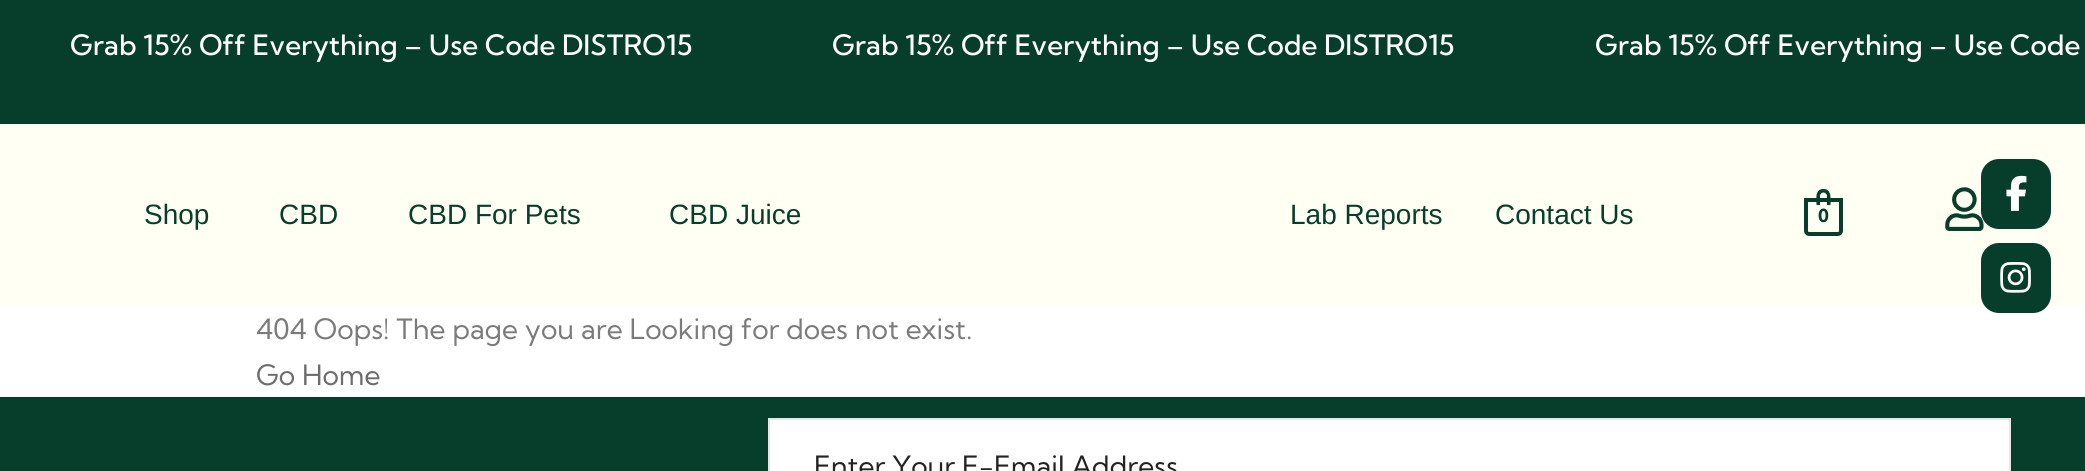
#include <cairo.h>
#include <math.h>
#include <stddef.h>


static void round_rect(cairo_t *cr, double x, double y, double w, double h, double r) {
    cairo_new_sub_path(cr);
    cairo_arc(cr, x + w - r, y + h - r, r, 0, M_PI / 2);
    cairo_arc(cr, x + r, y + h - r, r, M_PI / 2, M_PI);
    cairo_arc(cr, x + r, y + r, r, M_PI, 1.5 * M_PI);
    cairo_arc(cr, x + w - r, y + r, r, 1.5 * M_PI, 2 * M_PI);
    cairo_close_path(cr);
}

static void picture(cairo_t *cr, const char *path, double x, double y, double w, double h) {
    cairo_surface_t *image = cairo_image_surface_create_from_png(path);
    cairo_save(cr);
    cairo_set_source_surface(cr, image, x, y);
    cairo_rectangle(cr, x, y, w, h);
    cairo_fill(cr);
    cairo_restore(cr);
    cairo_surface_destroy(image);
}

int main(void) {
    cairo_surface_t *surface = cairo_image_surface_create(CAIRO_FORMAT_RGB24, 2085, 471);
    cairo_t *cr = cairo_create(surface);
    cairo_font_options_t *options = cairo_font_options_create();
    cairo_font_options_set_hint_metrics(options, CAIRO_HINT_METRICS_OFF);
    cairo_font_options_set_hint_style(options, CAIRO_HINT_STYLE_NONE);
    cairo_set_font_options(cr, options);
    cairo_set_miter_limit(cr, 4);
    cairo_set_source_rgb(cr, 1, 1, 1);
    cairo_paint(cr);
    cairo_set_source_rgb(cr, 0.031, 0.243, 0.169);
    cairo_rectangle(cr, 0, 0, 2085, 124);
    cairo_fill(cr);
    cairo_select_font_face(cr, "Kumbh Sans Medium", CAIRO_FONT_SLANT_NORMAL, CAIRO_FONT_WEIGHT_NORMAL);
    cairo_set_font_size(cr, 28);
    cairo_set_source_rgb(cr, 1, 1, 1);
    cairo_move_to(cr, 70, 55);
    cairo_show_text(cr, "Grab 15% Off Everything – Use Code DISTRO15");
    cairo_move_to(cr, 832, 55);
    cairo_show_text(cr, "Grab 15% Off Everything – Use Code DISTRO15");
    cairo_move_to(cr, 1595, 55);
    cairo_show_text(cr, "Grab 15% Off Everything – Use Code");
    cairo_set_source_rgb(cr, 1, 1, 0.953);
    cairo_rectangle(cr, 0, 124, 2085, 182);
    cairo_fill(cr);
    cairo_select_font_face(cr, "Liberation Sans", CAIRO_FONT_SLANT_NORMAL, CAIRO_FONT_WEIGHT_NORMAL);
    cairo_set_source_rgb(cr, 0.031, 0.243, 0.169);
    cairo_move_to(cr, 144, 224);
    cairo_show_text(cr, "Shop");
    cairo_move_to(cr, 279, 224);
    cairo_show_text(cr, "CBD");
    cairo_move_to(cr, 408, 224);
    cairo_show_text(cr, "CBD For Pets");
    cairo_move_to(cr, 669, 224);
    cairo_show_text(cr, "CBD Juice");
    cairo_move_to(cr, 1290, 224);
    cairo_show_text(cr, "Lab Reports");
    cairo_move_to(cr, 1495, 224);
    cairo_show_text(cr, "Contact Us");
    cairo_new_path(cr);
    cairo_move_to(cr, 1806, 200);
    cairo_line_to(cr, 1841, 200);
    cairo_line_to(cr, 1841, 231);
    cairo_curve_to(cr, 1841, 232.5, 1839.5, 234, 1838, 234);
    cairo_line_to(cr, 1809, 234);
    cairo_curve_to(cr, 1807.5, 234, 1806, 232.5, 1806, 231);
    cairo_close_path(cr);
    cairo_set_line_width(cr, 4);
    cairo_stroke(cr);
    cairo_set_fill_rule(cr, CAIRO_FILL_RULE_EVEN_ODD);
    cairo_new_path(cr);
    cairo_move_to(cr, 1823.5, 189);
    cairo_curve_to(cr, 1832, 189, 1830.5, 199, 1830.5, 205);
    cairo_line_to(cr, 1816.5, 205);
    cairo_curve_to(cr, 1816.5, 199, 1814.5, 189, 1823.5, 189);
    cairo_close_path(cr);
    cairo_move_to(cr, 1823.5, 192.5);
    cairo_curve_to(cr, 1825, 192.5, 1827, 194, 1827, 196);
    cairo_line_to(cr, 1827, 205);
    cairo_line_to(cr, 1820, 205);
    cairo_line_to(cr, 1820, 196);
    cairo_curve_to(cr, 1820, 194, 1821.5, 192.5, 1823.5, 192.5);
    cairo_close_path(cr);
    cairo_fill(cr);
    cairo_select_font_face(cr, "Kumbh Sans", CAIRO_FONT_SLANT_NORMAL, CAIRO_FONT_WEIGHT_BOLD);
    cairo_set_font_size(cr, 18);
    cairo_move_to(cr, 1818, 222);
    cairo_show_text(cr, "0");
    picture(cr, "img1.png", 1945, 187, 39, 44);
    cairo_select_font_face(cr, "Kumbh Sans", CAIRO_FONT_SLANT_NORMAL, CAIRO_FONT_WEIGHT_NORMAL);
    cairo_set_font_size(cr, 28);
    cairo_set_source_rgb(cr, 0.482, 0.482, 0.482);
    cairo_move_to(cr, 256, 339);
    cairo_show_text(cr, "404 Oops! The page you are Looking for does not exist.");
    cairo_set_source_rgb(cr, 0.427, 0.427, 0.427);
    cairo_move_to(cr, 256, 385);
    cairo_show_text(cr, "Go Home");
    cairo_set_source_rgb(cr, 0.031, 0.243, 0.169);
    cairo_rectangle(cr, 0, 397, 2085, 74);
    cairo_fill(cr);
    cairo_set_source_rgb(cr, 1, 1, 1);
    cairo_rectangle(cr, 769, 419, 1241, 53);
    cairo_fill_preserve(cr);
    cairo_set_source_rgb(cr, 0.906, 0.906, 0.914);
    cairo_set_line_width(cr, 2);
    cairo_stroke(cr);
    cairo_set_source_rgb(cr, 0.137, 0.137, 0.137);
    cairo_move_to(cr, 814, 476);
    cairo_show_text(cr, "Enter Your E-Email Address");
    cairo_set_source_rgb(cr, 0.031, 0.243, 0.169);
    round_rect(cr, 1981, 159, 70, 70, 18);
    cairo_fill(cr);
    picture(cr, "img2.png", 2006, 175, 21, 36);
    round_rect(cr, 1981, 243, 70, 70, 18);
    cairo_fill(cr);
    picture(cr, "img3.png", 2000, 262, 31, 31);
    cairo_surface_write_to_png(surface, "page.png");
    cairo_font_options_destroy(options);
    cairo_destroy(cr);
    cairo_surface_destroy(surface);
    return 0;
}
